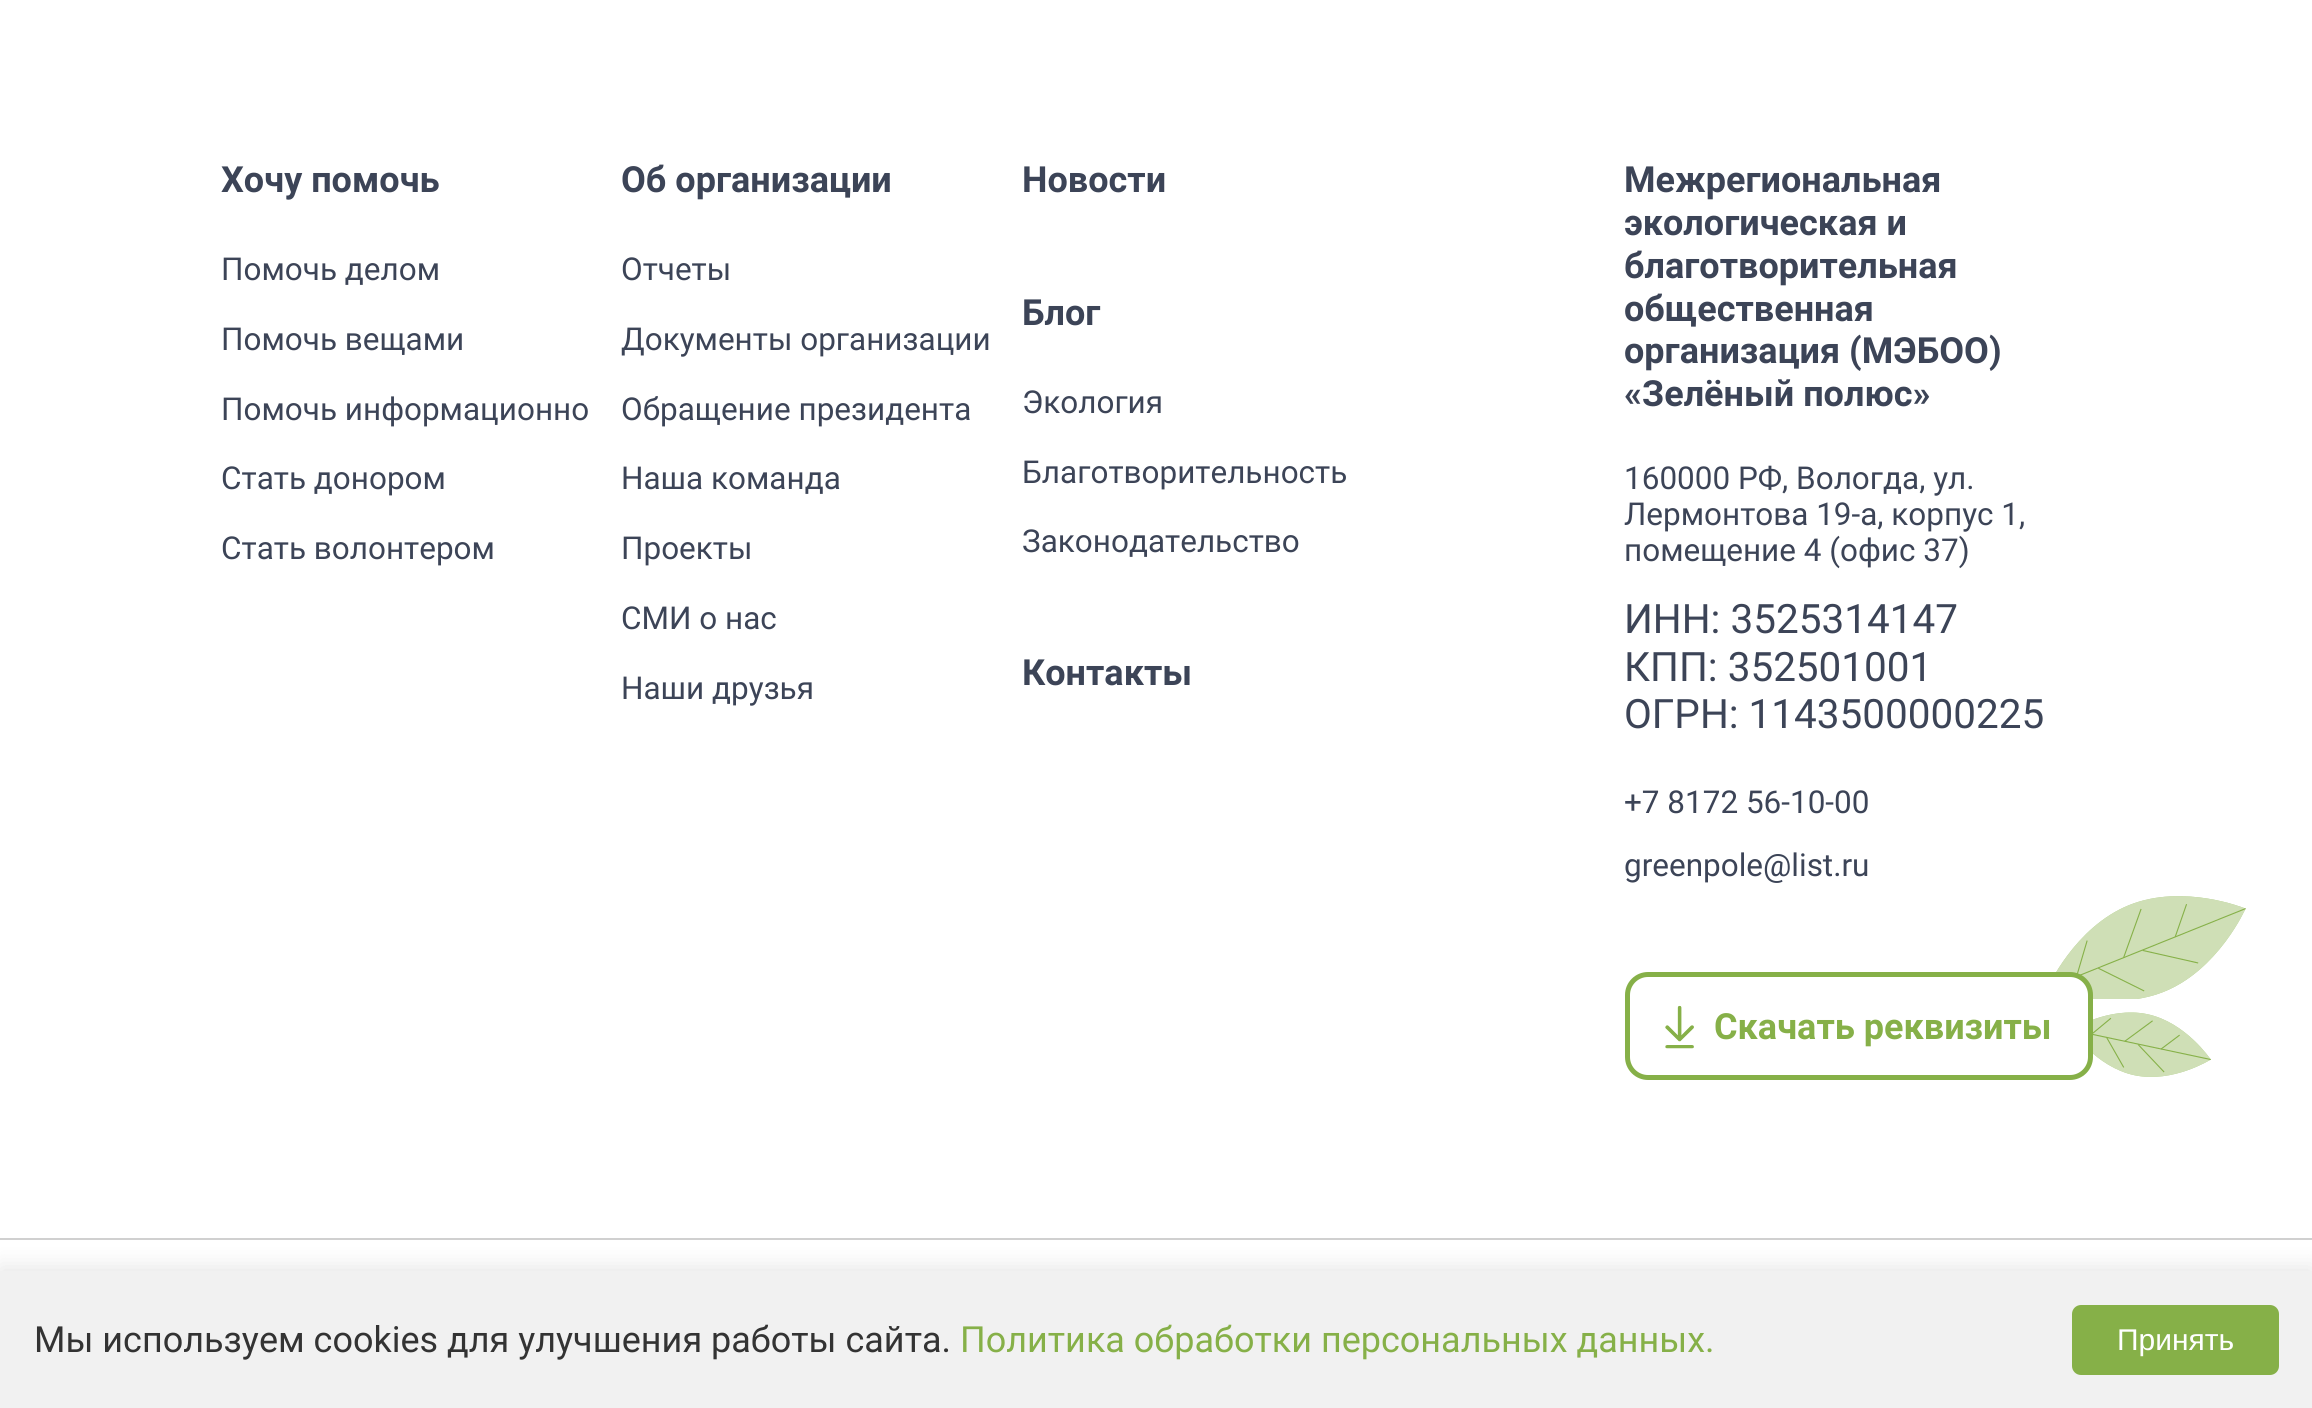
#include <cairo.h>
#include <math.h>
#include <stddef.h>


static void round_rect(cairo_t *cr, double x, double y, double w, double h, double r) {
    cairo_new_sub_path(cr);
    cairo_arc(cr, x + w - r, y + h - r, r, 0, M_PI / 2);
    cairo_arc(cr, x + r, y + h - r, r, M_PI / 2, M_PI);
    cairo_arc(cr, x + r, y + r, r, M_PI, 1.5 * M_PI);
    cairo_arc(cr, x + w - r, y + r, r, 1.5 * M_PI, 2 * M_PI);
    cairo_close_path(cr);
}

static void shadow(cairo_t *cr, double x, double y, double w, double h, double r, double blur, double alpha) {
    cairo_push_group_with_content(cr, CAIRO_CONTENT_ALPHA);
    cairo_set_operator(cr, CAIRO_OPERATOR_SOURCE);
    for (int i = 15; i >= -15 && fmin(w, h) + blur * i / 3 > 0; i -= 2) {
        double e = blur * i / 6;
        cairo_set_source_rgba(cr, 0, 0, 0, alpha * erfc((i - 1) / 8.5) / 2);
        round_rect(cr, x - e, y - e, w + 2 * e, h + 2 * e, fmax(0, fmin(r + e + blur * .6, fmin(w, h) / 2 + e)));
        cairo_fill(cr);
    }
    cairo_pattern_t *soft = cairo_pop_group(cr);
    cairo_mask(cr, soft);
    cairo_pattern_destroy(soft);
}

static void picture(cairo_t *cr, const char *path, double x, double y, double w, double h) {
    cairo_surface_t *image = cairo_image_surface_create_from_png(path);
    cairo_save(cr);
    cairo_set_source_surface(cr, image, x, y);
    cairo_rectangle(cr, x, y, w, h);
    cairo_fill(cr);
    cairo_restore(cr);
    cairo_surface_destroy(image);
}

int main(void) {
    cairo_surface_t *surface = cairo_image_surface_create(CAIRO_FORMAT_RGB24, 2312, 1408);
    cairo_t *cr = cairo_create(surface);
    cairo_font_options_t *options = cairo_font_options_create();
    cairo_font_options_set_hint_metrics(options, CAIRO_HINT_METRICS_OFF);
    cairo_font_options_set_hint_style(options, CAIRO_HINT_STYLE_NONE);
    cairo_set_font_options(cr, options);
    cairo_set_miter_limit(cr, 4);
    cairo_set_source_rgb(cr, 1, 1, 1);
    cairo_paint(cr);
    cairo_select_font_face(cr, "Roboto", CAIRO_FONT_SLANT_NORMAL, CAIRO_FONT_WEIGHT_BOLD);
    cairo_set_font_size(cr, 36);
    cairo_set_source_rgb(cr, 0.235, 0.267, 0.341);
    cairo_move_to(cr, 221, 192);
    cairo_show_text(cr, "Хочу помочь");
    cairo_select_font_face(cr, "Roboto", CAIRO_FONT_SLANT_NORMAL, CAIRO_FONT_WEIGHT_NORMAL);
    cairo_set_font_size(cr, 31.5);
    cairo_move_to(cr, 221, 280);
    cairo_show_text(cr, "Помочь делом");
    cairo_move_to(cr, 221, 350);
    cairo_show_text(cr, "Помочь вещами");
    cairo_move_to(cr, 221, 420);
    cairo_show_text(cr, "Помочь информационно");
    cairo_move_to(cr, 221, 489);
    cairo_show_text(cr, "Стать донором");
    cairo_move_to(cr, 221, 559);
    cairo_show_text(cr, "Стать волонтером");
    cairo_select_font_face(cr, "Roboto", CAIRO_FONT_SLANT_NORMAL, CAIRO_FONT_WEIGHT_BOLD);
    cairo_set_font_size(cr, 36);
    cairo_move_to(cr, 621, 192);
    cairo_show_text(cr, "Об организации");
    cairo_select_font_face(cr, "Roboto", CAIRO_FONT_SLANT_NORMAL, CAIRO_FONT_WEIGHT_NORMAL);
    cairo_set_font_size(cr, 31.5);
    cairo_move_to(cr, 621, 280);
    cairo_show_text(cr, "Отчеты");
    cairo_move_to(cr, 621, 350);
    cairo_show_text(cr, "Документы организации");
    cairo_move_to(cr, 621, 420);
    cairo_show_text(cr, "Обращение президента");
    cairo_move_to(cr, 621, 489);
    cairo_show_text(cr, "Наша команда");
    cairo_move_to(cr, 621, 559);
    cairo_show_text(cr, "Проекты");
    cairo_move_to(cr, 621, 629);
    cairo_show_text(cr, "СМИ о нас");
    cairo_move_to(cr, 621, 699);
    cairo_show_text(cr, "Наши друзья");
    cairo_select_font_face(cr, "Roboto", CAIRO_FONT_SLANT_NORMAL, CAIRO_FONT_WEIGHT_BOLD);
    cairo_set_font_size(cr, 36);
    cairo_move_to(cr, 1022, 192);
    cairo_show_text(cr, "Новости");
    cairo_move_to(cr, 1022, 325);
    cairo_show_text(cr, "Блог");
    cairo_select_font_face(cr, "Roboto", CAIRO_FONT_SLANT_NORMAL, CAIRO_FONT_WEIGHT_NORMAL);
    cairo_set_font_size(cr, 31.5);
    cairo_move_to(cr, 1022, 413);
    cairo_show_text(cr, "Экология");
    cairo_move_to(cr, 1022, 483);
    cairo_show_text(cr, "Благотворительность");
    cairo_move_to(cr, 1022, 552);
    cairo_show_text(cr, "Законодательство");
    cairo_select_font_face(cr, "Roboto", CAIRO_FONT_SLANT_NORMAL, CAIRO_FONT_WEIGHT_BOLD);
    cairo_set_font_size(cr, 36);
    cairo_move_to(cr, 1022, 685);
    cairo_show_text(cr, "Контакты");
    cairo_move_to(cr, 1624, 192);
    cairo_show_text(cr, "Межрегиональная");
    cairo_move_to(cr, 1624, 235);
    cairo_show_text(cr, "экологическая и");
    cairo_move_to(cr, 1624, 278);
    cairo_show_text(cr, "благотворительная");
    cairo_move_to(cr, 1624, 321);
    cairo_show_text(cr, "общественная");
    cairo_move_to(cr, 1624, 363);
    cairo_show_text(cr, "организация (МЭБОО)");
    cairo_move_to(cr, 1624, 406);
    cairo_show_text(cr, "«Зелёный полюс»");
    cairo_select_font_face(cr, "Roboto", CAIRO_FONT_SLANT_NORMAL, CAIRO_FONT_WEIGHT_NORMAL);
    cairo_set_font_size(cr, 31.5);
    cairo_move_to(cr, 1624, 489);
    cairo_show_text(cr, "160000 РФ, Вологда, ул.");
    cairo_move_to(cr, 1624, 525);
    cairo_show_text(cr, "Лермонтова 19-а, корпус 1,");
    cairo_move_to(cr, 1624, 561);
    cairo_show_text(cr, "помещение 4 (офис 37)");
    cairo_set_font_size(cr, 40.5);
    cairo_move_to(cr, 1624, 633);
    cairo_show_text(cr, "ИНН: 3525314147");
    cairo_move_to(cr, 1624, 681);
    cairo_show_text(cr, "КПП: 352501001");
    cairo_move_to(cr, 1624, 728);
    cairo_show_text(cr, "ОГРН: 1143500000225");
    cairo_set_font_size(cr, 31.5);
    cairo_move_to(cr, 1624, 813);
    cairo_show_text(cr, "+7 8172 56-10-00");
    cairo_move_to(cr, 1624, 876);
    cairo_show_text(cr, "greenpole@list.ru");
    picture(cr, "img1.png", 2056, 896, 190, 103);
    cairo_set_source_rgb(cr, 1, 1, 1);
    round_rect(cr, 1627.5, 974.5, 463, 103, 20.5);
    cairo_fill_preserve(cr);
    cairo_set_source_rgb(cr, 0.525, 0.69, 0.282);
    cairo_set_line_width(cr, 5);
    cairo_stroke(cr);
    picture(cr, "img2.png", 1665, 1005, 29, 44);
    cairo_select_font_face(cr, "Roboto", CAIRO_FONT_SLANT_NORMAL, CAIRO_FONT_WEIGHT_BOLD);
    cairo_set_font_size(cr, 36);
    cairo_move_to(cr, 1714, 1039);
    cairo_show_text(cr, "Скачать реквизиты");
    picture(cr, "img3.png", 2093, 1012, 118, 65);
    cairo_set_source_rgb(cr, 0.816, 0.816, 0.816);
    cairo_rectangle(cr, 0, 1238, 2312, 2);
    cairo_fill(cr);
    cairo_set_source_rgb(cr, 0, 0, 0);
    shadow(cr, 0, 1267, 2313, 137, 0, 11, 0.1);
    cairo_set_source_rgb(cr, 0.945, 0.945, 0.945);
    cairo_rectangle(cr, 0, 1271, 2312, 137);
    cairo_fill(cr);
    cairo_select_font_face(cr, "Roboto", CAIRO_FONT_SLANT_NORMAL, CAIRO_FONT_WEIGHT_NORMAL);
    cairo_set_source_rgb(cr, 0.2, 0.2, 0.2);
    cairo_move_to(cr, 34, 1352);
    cairo_show_text(cr, "Мы используем cookies для улучшения работы сайта.");
    cairo_set_source_rgb(cr, 0.525, 0.69, 0.282);
    cairo_move_to(cr, 960, 1352);
    cairo_show_text(cr, "Политика обработки персональных данных.");
    round_rect(cr, 2072, 1305, 207, 70, 9);
    cairo_fill(cr);
    cairo_select_font_face(cr, "Liberation Sans", CAIRO_FONT_SLANT_NORMAL, CAIRO_FONT_WEIGHT_NORMAL);
    cairo_set_font_size(cr, 30);
    cairo_set_source_rgb(cr, 1, 1, 1);
    cairo_move_to(cr, 2117, 1350);
    cairo_show_text(cr, "Принять");
    cairo_surface_write_to_png(surface, "page.png");
    cairo_font_options_destroy(options);
    cairo_destroy(cr);
    cairo_surface_destroy(surface);
    return 0;
}
